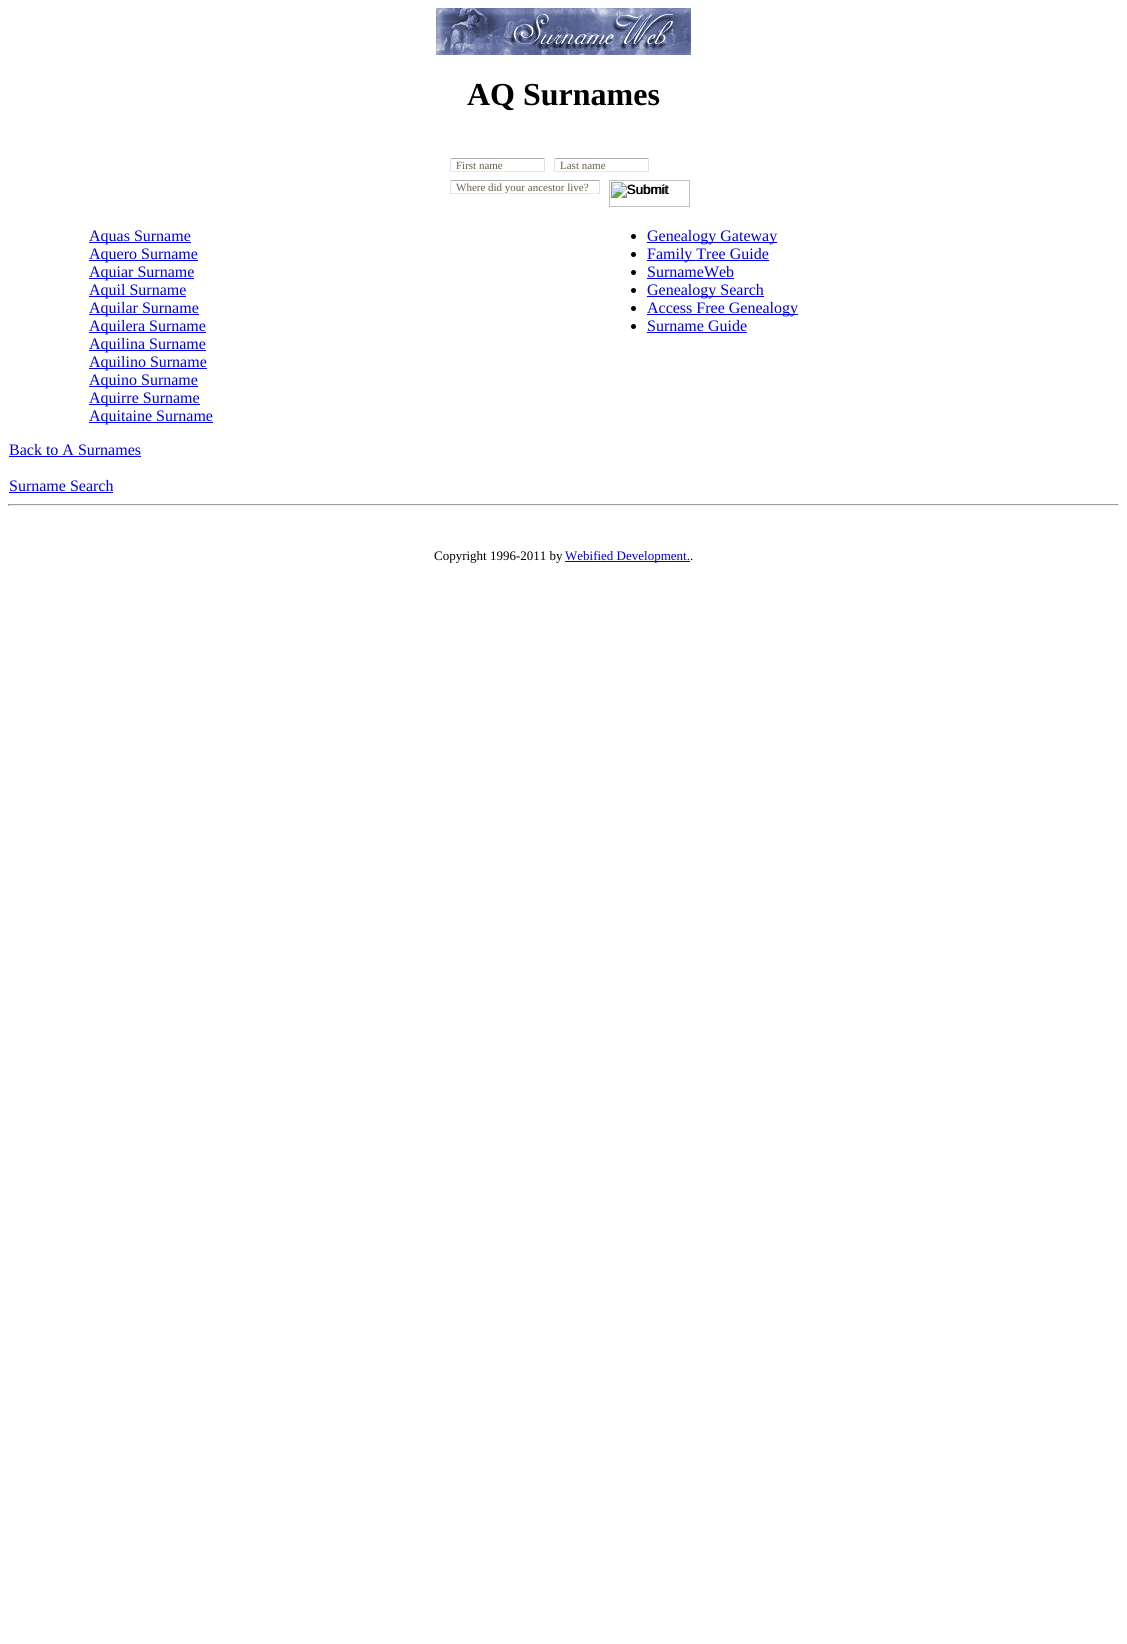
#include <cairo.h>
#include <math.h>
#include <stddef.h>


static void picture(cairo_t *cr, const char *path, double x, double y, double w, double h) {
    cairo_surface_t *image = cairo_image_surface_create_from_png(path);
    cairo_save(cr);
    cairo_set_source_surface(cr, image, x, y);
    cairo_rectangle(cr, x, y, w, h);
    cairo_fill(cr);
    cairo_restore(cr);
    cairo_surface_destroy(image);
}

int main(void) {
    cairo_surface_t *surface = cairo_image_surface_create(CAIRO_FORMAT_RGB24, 1127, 1644);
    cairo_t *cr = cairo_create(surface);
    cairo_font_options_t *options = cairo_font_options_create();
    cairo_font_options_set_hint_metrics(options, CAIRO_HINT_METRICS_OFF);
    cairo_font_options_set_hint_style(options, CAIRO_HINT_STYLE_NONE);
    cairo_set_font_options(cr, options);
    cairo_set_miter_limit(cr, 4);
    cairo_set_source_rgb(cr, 1, 1, 1);
    cairo_paint(cr);
    picture(cr, "img1.png", 436, 8, 255, 47);
    cairo_select_font_face(cr, "Liberation Serif", CAIRO_FONT_SLANT_NORMAL, CAIRO_FONT_WEIGHT_BOLD);
    cairo_set_font_size(cr, 32);
    cairo_set_source_rgb(cr, 0, 0, 0);
    cairo_move_to(cr, 467, 105);
    cairo_show_text(cr, "AQ Surnames");
    cairo_set_source_rgb(cr, 0.667, 0.678, 0.698);
    cairo_rectangle(cr, 450, 158, 95, 1);
    cairo_fill(cr);
    cairo_set_source_rgb(cr, 0.863, 0.875, 0.902);
    cairo_rectangle(cr, 544, 158, 1, 14);
    cairo_fill(cr);
    cairo_set_source_rgb(cr, 0.886, 0.914, 0.937);
    cairo_rectangle(cr, 450, 171, 95, 1);
    cairo_fill(cr);
    cairo_set_source_rgb(cr, 0.886, 0.886, 0.925);
    cairo_rectangle(cr, 450, 158, 1, 14);
    cairo_fill(cr);
    cairo_select_font_face(cr, "Liberation Serif", CAIRO_FONT_SLANT_NORMAL, CAIRO_FONT_WEIGHT_NORMAL);
    cairo_set_font_size(cr, 11);
    cairo_set_source_rgb(cr, 0.412, 0.369, 0.286);
    cairo_move_to(cr, 456, 169);
    cairo_show_text(cr, "First name");
    cairo_set_source_rgb(cr, 0.667, 0.678, 0.698);
    cairo_rectangle(cr, 554, 158, 95, 1);
    cairo_fill(cr);
    cairo_set_source_rgb(cr, 0.863, 0.875, 0.902);
    cairo_rectangle(cr, 648, 158, 1, 14);
    cairo_fill(cr);
    cairo_set_source_rgb(cr, 0.886, 0.914, 0.937);
    cairo_rectangle(cr, 554, 171, 95, 1);
    cairo_fill(cr);
    cairo_set_source_rgb(cr, 0.886, 0.886, 0.925);
    cairo_rectangle(cr, 554, 158, 1, 14);
    cairo_fill(cr);
    cairo_set_source_rgb(cr, 0.412, 0.369, 0.286);
    cairo_move_to(cr, 560, 169);
    cairo_show_text(cr, "Last name");
    cairo_set_source_rgb(cr, 0.667, 0.678, 0.698);
    cairo_rectangle(cr, 450, 180, 150, 1);
    cairo_fill(cr);
    cairo_set_source_rgb(cr, 0.863, 0.875, 0.902);
    cairo_rectangle(cr, 599, 180, 1, 14);
    cairo_fill(cr);
    cairo_set_source_rgb(cr, 0.886, 0.914, 0.937);
    cairo_rectangle(cr, 450, 193, 150, 1);
    cairo_fill(cr);
    cairo_set_source_rgb(cr, 0.886, 0.886, 0.925);
    cairo_rectangle(cr, 450, 180, 1, 14);
    cairo_fill(cr);
    cairo_save(cr);
    cairo_rectangle(cr, 456, 181, 138, 12);
    cairo_clip(cr);
    cairo_set_source_rgb(cr, 0.412, 0.369, 0.286);
    cairo_move_to(cr, 456, 191);
    cairo_show_text(cr, "Where did your ancestor live?");
    cairo_restore(cr);
    picture(cr, "img2.png", 609, 180, 81, 27);
    cairo_select_font_face(cr, "Liberation Sans", CAIRO_FONT_SLANT_NORMAL, CAIRO_FONT_WEIGHT_NORMAL);
    cairo_set_font_size(cr, 13.5);
    cairo_set_source_rgb(cr, 0, 0, 0);
    cairo_move_to(cr, 627, 194);
    cairo_show_text(cr, "Submit");
    cairo_set_source_rgb(cr, 0, 0, 0.933);
    cairo_rectangle(cr, 89, 242, 102, 1);
    cairo_fill(cr);
    cairo_select_font_face(cr, "Liberation Serif", CAIRO_FONT_SLANT_NORMAL, CAIRO_FONT_WEIGHT_NORMAL);
    cairo_set_font_size(cr, 16);
    cairo_move_to(cr, 89, 241);
    cairo_show_text(cr, "Aquas Surname");
    cairo_rectangle(cr, 89, 260, 109, 1);
    cairo_fill(cr);
    cairo_move_to(cr, 89, 259);
    cairo_show_text(cr, "Aquero Surname");
    cairo_rectangle(cr, 89, 278, 105, 1);
    cairo_fill(cr);
    cairo_move_to(cr, 89, 277);
    cairo_show_text(cr, "Aquiar Surname");
    cairo_rectangle(cr, 89, 296, 97, 1);
    cairo_fill(cr);
    cairo_move_to(cr, 89, 295);
    cairo_show_text(cr, "Aquil Surname");
    cairo_rectangle(cr, 89, 314, 110, 1);
    cairo_fill(cr);
    cairo_move_to(cr, 89, 313);
    cairo_show_text(cr, "Aquilar Surname");
    cairo_rectangle(cr, 89, 332, 117, 1);
    cairo_fill(cr);
    cairo_move_to(cr, 89, 331);
    cairo_show_text(cr, "Aquilera Surname");
    cairo_rectangle(cr, 89, 350, 117, 1);
    cairo_fill(cr);
    cairo_move_to(cr, 89, 349);
    cairo_show_text(cr, "Aquilina Surname");
    cairo_rectangle(cr, 89, 368, 118, 1);
    cairo_fill(cr);
    cairo_move_to(cr, 89, 367);
    cairo_show_text(cr, "Aquilino Surname");
    cairo_rectangle(cr, 89, 386, 109, 1);
    cairo_fill(cr);
    cairo_move_to(cr, 89, 385);
    cairo_show_text(cr, "Aquino Surname");
    cairo_rectangle(cr, 89, 404, 111, 1);
    cairo_fill(cr);
    cairo_move_to(cr, 89, 403);
    cairo_show_text(cr, "Aquirre Surname");
    cairo_rectangle(cr, 89, 422, 124, 1);
    cairo_fill(cr);
    cairo_move_to(cr, 89, 421);
    cairo_show_text(cr, "Aquitaine Surname");
    cairo_move_to(cr, 9, 455);
    cairo_show_text(cr, "Back to A Surnames");
    cairo_rectangle(cr, 9, 456, 132, 1);
    cairo_fill(cr);
    cairo_move_to(cr, 9, 491);
    cairo_show_text(cr, "Surname Search");
    cairo_rectangle(cr, 9, 492, 104, 1);
    cairo_fill(cr);
    cairo_set_source_rgb(cr, 0, 0, 0);
    cairo_arc(cr, 633.5, 236.5, 2.5, 0, 2 * M_PI);
    cairo_fill(cr);
    cairo_set_source_rgb(cr, 0, 0, 0.933);
    cairo_rectangle(cr, 647, 242, 130, 1);
    cairo_fill(cr);
    cairo_move_to(cr, 647, 241);
    cairo_show_text(cr, "Genealogy Gateway");
    cairo_set_source_rgb(cr, 0, 0, 0);
    cairo_new_path(cr);
    cairo_arc(cr, 633.5, 254.5, 2.5, 0, 2 * M_PI);
    cairo_fill(cr);
    cairo_set_source_rgb(cr, 0, 0, 0.933);
    cairo_rectangle(cr, 647, 260, 122, 1);
    cairo_fill(cr);
    cairo_move_to(cr, 647, 259);
    cairo_show_text(cr, "Family Tree Guide");
    cairo_set_source_rgb(cr, 0, 0, 0);
    cairo_new_path(cr);
    cairo_arc(cr, 633.5, 272.5, 2.5, 0, 2 * M_PI);
    cairo_fill(cr);
    cairo_set_source_rgb(cr, 0, 0, 0.933);
    cairo_move_to(cr, 647, 277);
    cairo_show_text(cr, "SurnameWeb");
    cairo_rectangle(cr, 647, 278, 87, 1);
    cairo_fill(cr);
    cairo_set_source_rgb(cr, 0, 0, 0);
    cairo_arc(cr, 633.5, 290.5, 2.5, 0, 2 * M_PI);
    cairo_fill(cr);
    cairo_set_source_rgb(cr, 0, 0, 0.933);
    cairo_rectangle(cr, 647, 296, 117, 1);
    cairo_fill(cr);
    cairo_move_to(cr, 647, 295);
    cairo_show_text(cr, "Genealogy Search");
    cairo_set_source_rgb(cr, 0, 0, 0);
    cairo_new_path(cr);
    cairo_arc(cr, 633.5, 308.5, 2.5, 0, 2 * M_PI);
    cairo_fill(cr);
    cairo_set_source_rgb(cr, 0, 0, 0.933);
    cairo_rectangle(cr, 647, 314, 151, 1);
    cairo_fill(cr);
    cairo_move_to(cr, 647, 313);
    cairo_show_text(cr, "Access Free Genealogy");
    cairo_set_source_rgb(cr, 0, 0, 0);
    cairo_new_path(cr);
    cairo_arc(cr, 633.5, 326.5, 2.5, 0, 2 * M_PI);
    cairo_fill(cr);
    cairo_set_source_rgb(cr, 0, 0, 0.933);
    cairo_move_to(cr, 647, 331);
    cairo_show_text(cr, "Surname Guide");
    cairo_rectangle(cr, 647, 332, 100, 1);
    cairo_fill(cr);
    cairo_set_source_rgb(cr, 0.624, 0.624, 0.624);
    cairo_rectangle(cr, 8, 504, 1111, 1);
    cairo_fill(cr);
    cairo_set_source_rgb(cr, 0.933, 0.933, 0.933);
    cairo_rectangle(cr, 1118, 504, 1, 2);
    cairo_fill(cr);
    cairo_rectangle(cr, 8, 505, 1111, 1);
    cairo_fill(cr);
    cairo_set_source_rgb(cr, 0.624, 0.624, 0.624);
    cairo_rectangle(cr, 8, 504, 1, 2);
    cairo_fill(cr);
    cairo_set_font_size(cr, 13);
    cairo_set_source_rgb(cr, 0, 0, 0);
    cairo_move_to(cr, 434, 560);
    cairo_show_text(cr, "Copyright 1996-2011 by");
    cairo_set_source_rgb(cr, 0, 0, 0.933);
    cairo_rectangle(cr, 565, 561, 125, 1);
    cairo_fill(cr);
    cairo_move_to(cr, 565, 560);
    cairo_show_text(cr, "Webified Development.");
    cairo_set_source_rgb(cr, 0, 0, 0);
    cairo_move_to(cr, 690, 560);
    cairo_show_text(cr, ".");
    cairo_surface_write_to_png(surface, "page.png");
    cairo_font_options_destroy(options);
    cairo_destroy(cr);
    cairo_surface_destroy(surface);
    return 0;
}
